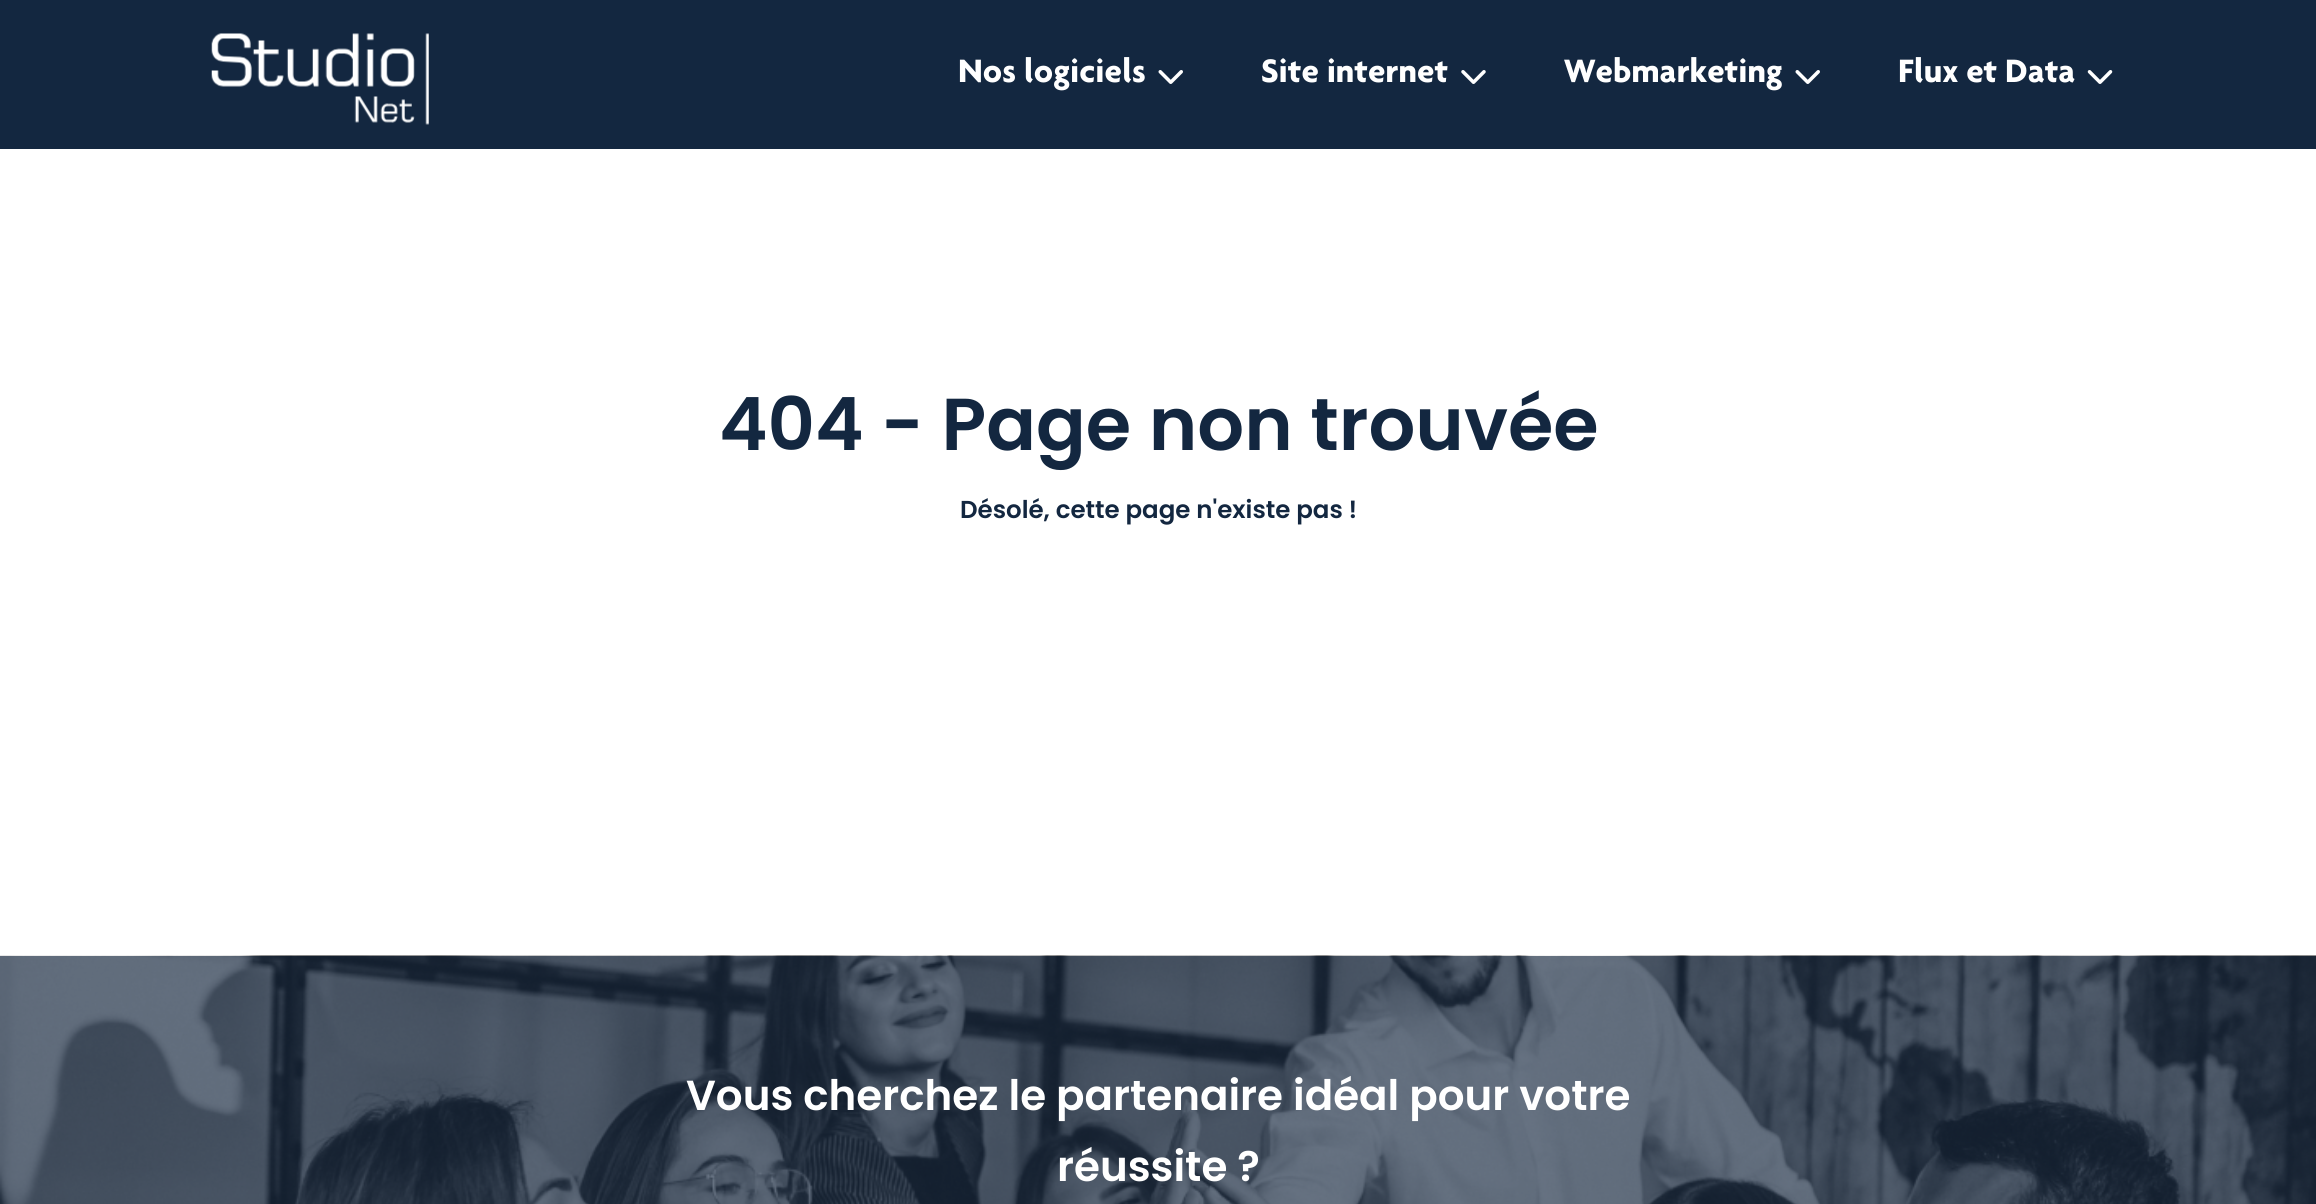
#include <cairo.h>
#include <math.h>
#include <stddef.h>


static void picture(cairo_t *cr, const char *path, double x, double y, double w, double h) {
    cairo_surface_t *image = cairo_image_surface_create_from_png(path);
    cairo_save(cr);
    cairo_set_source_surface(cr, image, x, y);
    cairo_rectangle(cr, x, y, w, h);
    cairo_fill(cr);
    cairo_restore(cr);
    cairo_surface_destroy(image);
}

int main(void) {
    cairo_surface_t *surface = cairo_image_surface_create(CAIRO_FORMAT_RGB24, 2316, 1204);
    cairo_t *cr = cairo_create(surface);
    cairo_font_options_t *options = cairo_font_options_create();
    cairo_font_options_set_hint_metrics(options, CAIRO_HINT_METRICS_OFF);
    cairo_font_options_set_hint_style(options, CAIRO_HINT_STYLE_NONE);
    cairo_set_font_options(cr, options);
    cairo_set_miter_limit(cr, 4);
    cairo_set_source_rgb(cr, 1, 1, 1);
    cairo_paint(cr);
    cairo_set_source_rgb(cr, 0.078, 0.153, 0.251);
    cairo_rectangle(cr, 0, 0, 2316, 149);
    cairo_fill(cr);
    picture(cr, "img1.png", 211, 33, 218, 92);
    cairo_select_font_face(cr, "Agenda", CAIRO_FONT_SLANT_NORMAL, CAIRO_FONT_WEIGHT_BOLD);
    cairo_set_font_size(cr, 35);
    cairo_set_source_rgb(cr, 1, 1, 1);
    cairo_move_to(cr, 958, 82);
    cairo_show_text(cr, "Nos logiciels");
    picture(cr, "img2.png", 1158, 70, 25, 14);
    cairo_move_to(cr, 1261, 82);
    cairo_show_text(cr, "Site internet");
    picture(cr, "img3.png", 1461, 70, 25, 14);
    cairo_move_to(cr, 1564, 82);
    cairo_show_text(cr, "Webmarketing");
    picture(cr, "img2.png", 1795, 70, 25, 14);
    cairo_move_to(cr, 1898, 82);
    cairo_show_text(cr, "Flux et Data");
    picture(cr, "img4.png", 2087, 70, 26, 14);
    cairo_select_font_face(cr, "Poppins SemiBold", CAIRO_FONT_SLANT_NORMAL, CAIRO_FONT_WEIGHT_NORMAL);
    cairo_set_font_size(cr, 73.5);
    cairo_set_source_rgb(cr, 0.078, 0.153, 0.251);
    cairo_move_to(cr, 719, 450);
    cairo_show_text(cr, "404 - Page non trouvée");
    cairo_set_font_size(cr, 24.5);
    cairo_move_to(cr, 960, 518);
    cairo_show_text(cr, "Désolé, cette page n'existe pas !");
    picture(cr, "img5.png", 0, 955, 2316, 249);
    cairo_set_font_size(cr, 42);
    cairo_set_source_rgb(cr, 1, 1, 1);
    cairo_move_to(cr, 686, 1110);
    cairo_show_text(cr, "Vous cherchez le partenaire idéal pour votre");
    cairo_move_to(cr, 1057, 1181);
    cairo_show_text(cr, "réussite ?");
    cairo_surface_write_to_png(surface, "page.png");
    cairo_font_options_destroy(options);
    cairo_destroy(cr);
    cairo_surface_destroy(surface);
    return 0;
}
